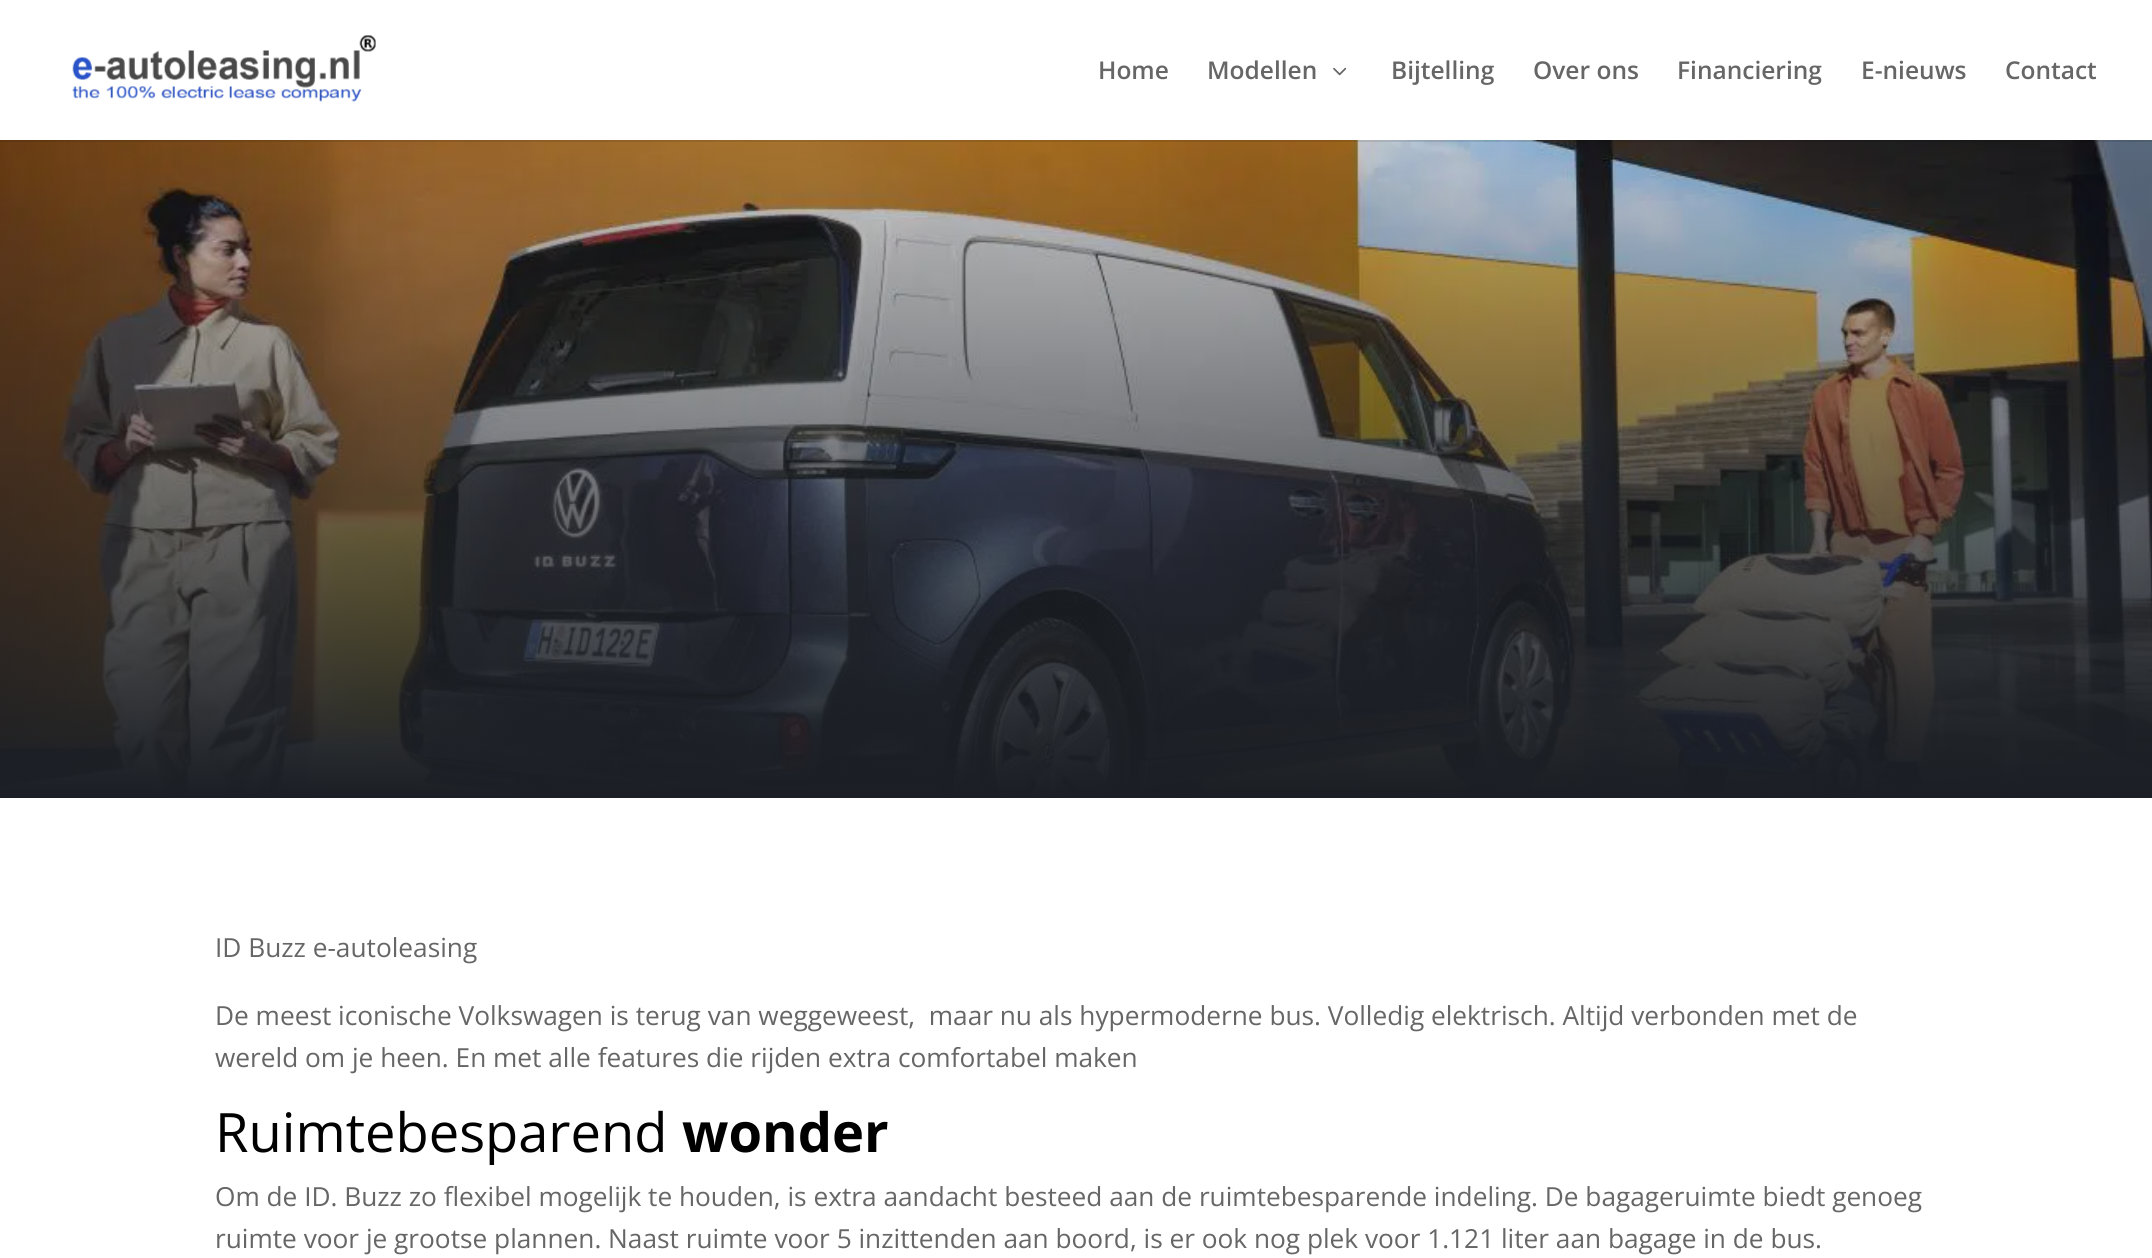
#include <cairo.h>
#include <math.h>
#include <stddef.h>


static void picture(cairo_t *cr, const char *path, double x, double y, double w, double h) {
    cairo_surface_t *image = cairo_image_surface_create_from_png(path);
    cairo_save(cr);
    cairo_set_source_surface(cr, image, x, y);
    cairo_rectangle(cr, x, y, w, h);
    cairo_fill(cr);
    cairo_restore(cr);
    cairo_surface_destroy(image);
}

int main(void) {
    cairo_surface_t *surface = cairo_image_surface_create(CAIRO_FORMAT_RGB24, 2152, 1258);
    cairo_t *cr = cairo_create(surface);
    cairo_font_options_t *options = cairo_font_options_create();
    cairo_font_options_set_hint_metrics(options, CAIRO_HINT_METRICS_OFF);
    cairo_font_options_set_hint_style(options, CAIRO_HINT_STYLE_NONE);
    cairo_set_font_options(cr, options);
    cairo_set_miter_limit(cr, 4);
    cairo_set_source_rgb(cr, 1, 1, 1);
    cairo_paint(cr);
    picture(cr, "img3.png", 0, 140, 2152, 658);
    cairo_set_source_rgba(cr, 0, 0, 0, 0.1);
    cairo_new_path(cr);
    cairo_move_to(cr, 0, 140);
    cairo_line_to(cr, 0, 142);
    cairo_line_to(cr, 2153, 142);
    cairo_line_to(cr, 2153, 2);
    cairo_line_to(cr, 2152, 2);
    cairo_line_to(cr, 2152, 140);
    cairo_close_path(cr);
    cairo_fill(cr);
    picture(cr, "img1.png", 72, 35, 304, 67);
    cairo_select_font_face(cr, "Open Sans SemiBold", CAIRO_FONT_SLANT_NORMAL, CAIRO_FONT_WEIGHT_NORMAL);
    cairo_set_font_size(cr, 24.5);
    cairo_set_source_rgb(cr, 0.4, 0.4, 0.4);
    cairo_move_to(cr, 1098, 79);
    cairo_show_text(cr, "Home");
    cairo_move_to(cr, 1207, 79);
    cairo_show_text(cr, "Modellen");
    picture(cr, "img2.png", 1333, 67, 14, 9);
    cairo_move_to(cr, 1391, 79);
    cairo_show_text(cr, "Bijtelling");
    cairo_move_to(cr, 1533, 79);
    cairo_show_text(cr, "Over ons");
    cairo_move_to(cr, 1677, 79);
    cairo_show_text(cr, "Financiering");
    cairo_move_to(cr, 1861, 79);
    cairo_show_text(cr, "E-nieuws");
    cairo_move_to(cr, 2005, 79);
    cairo_show_text(cr, "Contact");
    cairo_select_font_face(cr, "Open Sans", CAIRO_FONT_SLANT_NORMAL, CAIRO_FONT_WEIGHT_NORMAL);
    cairo_set_font_size(cr, 26.25);
    cairo_move_to(cr, 215, 957);
    cairo_show_text(cr, "ID Buzz e-autoleasing");
    cairo_move_to(cr, 215, 1025);
    cairo_show_text(cr, "De meest iconische Volkswagen is terug van weggeweest,  maar nu als hypermoderne bus. Volledig elektrisch. Altijd verbonden met de");
    cairo_move_to(cr, 215, 1067);
    cairo_show_text(cr, "wereld om je heen. En met alle features die rijden extra comfortabel maken");
    cairo_set_font_size(cr, 54.25);
    cairo_set_source_rgb(cr, 0, 0, 0);
    cairo_move_to(cr, 215, 1152);
    cairo_show_text(cr, "Ruimtebesparend");
    cairo_select_font_face(cr, "Open Sans", CAIRO_FONT_SLANT_NORMAL, CAIRO_FONT_WEIGHT_BOLD);
    cairo_move_to(cr, 682, 1152);
    cairo_show_text(cr, "wonder");
    cairo_select_font_face(cr, "Open Sans", CAIRO_FONT_SLANT_NORMAL, CAIRO_FONT_WEIGHT_NORMAL);
    cairo_set_font_size(cr, 26.25);
    cairo_set_source_rgb(cr, 0.4, 0.4, 0.4);
    cairo_move_to(cr, 215, 1206);
    cairo_show_text(cr, "Om de ID. Buzz zo flexibel mogelijk te houden, is extra aandacht besteed aan de ruimtebesparende indeling. De bagageruimte biedt genoeg");
    cairo_move_to(cr, 215, 1248);
    cairo_show_text(cr, "ruimte voor je grootse plannen. Naast ruimte voor 5 inzittenden aan boord, is er ook nog plek voor 1.121 liter aan bagage in de bus.");
    cairo_surface_write_to_png(surface, "page.png");
    cairo_font_options_destroy(options);
    cairo_destroy(cr);
    cairo_surface_destroy(surface);
    return 0;
}
